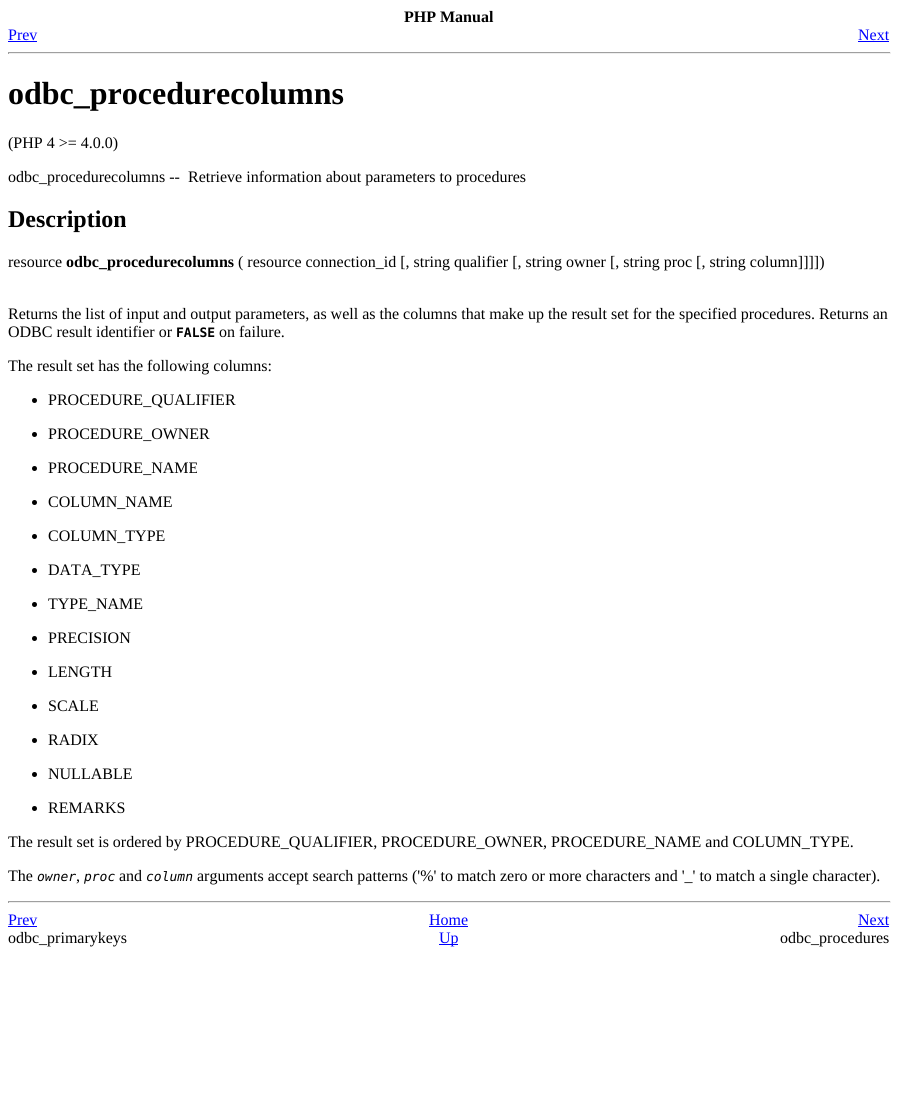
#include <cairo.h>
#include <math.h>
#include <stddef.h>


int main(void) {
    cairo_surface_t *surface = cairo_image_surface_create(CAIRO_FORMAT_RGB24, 897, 1102);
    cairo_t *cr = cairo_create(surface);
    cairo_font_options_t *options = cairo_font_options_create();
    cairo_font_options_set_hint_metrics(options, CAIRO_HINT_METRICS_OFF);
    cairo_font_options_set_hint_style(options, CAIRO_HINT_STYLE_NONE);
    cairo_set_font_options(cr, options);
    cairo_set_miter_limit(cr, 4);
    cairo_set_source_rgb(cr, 1, 1, 1);
    cairo_paint(cr);
    cairo_select_font_face(cr, "Liberation Serif", CAIRO_FONT_SLANT_NORMAL, CAIRO_FONT_WEIGHT_BOLD);
    cairo_set_font_size(cr, 16);
    cairo_set_source_rgb(cr, 0, 0, 0);
    cairo_move_to(cr, 404, 22);
    cairo_show_text(cr, "PHP Manual");
    cairo_select_font_face(cr, "Liberation Serif", CAIRO_FONT_SLANT_NORMAL, CAIRO_FONT_WEIGHT_NORMAL);
    cairo_set_source_rgb(cr, 0, 0, 1);
    cairo_move_to(cr, 8, 40);
    cairo_show_text(cr, "Prev");
    cairo_rectangle(cr, 8, 41, 29, 1);
    cairo_fill(cr);
    cairo_move_to(cr, 858, 40);
    cairo_show_text(cr, "Next");
    cairo_rectangle(cr, 858, 41, 31, 1);
    cairo_fill(cr);
    cairo_set_source_rgb(cr, 0.624, 0.624, 0.624);
    cairo_rectangle(cr, 8, 52, 883, 1);
    cairo_fill(cr);
    cairo_set_source_rgb(cr, 0.933, 0.933, 0.933);
    cairo_rectangle(cr, 890, 52, 1, 2);
    cairo_fill(cr);
    cairo_rectangle(cr, 8, 53, 883, 1);
    cairo_fill(cr);
    cairo_set_source_rgb(cr, 0.624, 0.624, 0.624);
    cairo_rectangle(cr, 8, 52, 1, 2);
    cairo_fill(cr);
    cairo_select_font_face(cr, "Liberation Serif", CAIRO_FONT_SLANT_NORMAL, CAIRO_FONT_WEIGHT_BOLD);
    cairo_set_font_size(cr, 32);
    cairo_set_source_rgb(cr, 0, 0, 0);
    cairo_move_to(cr, 8, 104);
    cairo_show_text(cr, "odbc_procedurecolumns");
    cairo_select_font_face(cr, "Liberation Serif", CAIRO_FONT_SLANT_NORMAL, CAIRO_FONT_WEIGHT_NORMAL);
    cairo_set_font_size(cr, 16);
    cairo_move_to(cr, 8, 148);
    cairo_show_text(cr, "(PHP 4 >= 4.0.0)");
    cairo_move_to(cr, 8, 182);
    cairo_show_text(cr, "odbc_procedurecolumns --");
    cairo_move_to(cr, 188, 182);
    cairo_show_text(cr, "Retrieve information about parameters to procedures");
    cairo_select_font_face(cr, "Liberation Serif", CAIRO_FONT_SLANT_NORMAL, CAIRO_FONT_WEIGHT_BOLD);
    cairo_set_font_size(cr, 24);
    cairo_move_to(cr, 8, 227);
    cairo_show_text(cr, "Description");
    cairo_select_font_face(cr, "Liberation Serif", CAIRO_FONT_SLANT_NORMAL, CAIRO_FONT_WEIGHT_NORMAL);
    cairo_set_font_size(cr, 16);
    cairo_move_to(cr, 8, 267);
    cairo_show_text(cr, "resource");
    cairo_select_font_face(cr, "Liberation Serif", CAIRO_FONT_SLANT_NORMAL, CAIRO_FONT_WEIGHT_BOLD);
    cairo_move_to(cr, 66, 267);
    cairo_show_text(cr, "odbc_procedurecolumns");
    cairo_select_font_face(cr, "Liberation Serif", CAIRO_FONT_SLANT_NORMAL, CAIRO_FONT_WEIGHT_NORMAL);
    cairo_move_to(cr, 238, 267);
    cairo_show_text(cr, "( resource connection_id [, string qualifier [, string owner [, string proc [, string column]]]])");
    cairo_move_to(cr, 8, 319);
    cairo_show_text(cr, "Returns the list of input and output parameters, as well as the columns that make up the result set for the specified procedures. Returns an");
    cairo_move_to(cr, 8, 337);
    cairo_show_text(cr, "ODBC result identifier or");
    cairo_select_font_face(cr, "DejaVu Sans Mono", CAIRO_FONT_SLANT_NORMAL, CAIRO_FONT_WEIGHT_BOLD);
    cairo_set_font_size(cr, 13);
    cairo_move_to(cr, 176, 337);
    cairo_show_text(cr, "FALSE");
    cairo_select_font_face(cr, "Liberation Serif", CAIRO_FONT_SLANT_NORMAL, CAIRO_FONT_WEIGHT_NORMAL);
    cairo_set_font_size(cr, 16);
    cairo_move_to(cr, 219, 337);
    cairo_show_text(cr, "on failure.");
    cairo_move_to(cr, 8, 371);
    cairo_show_text(cr, "The result set has the following columns:");
    cairo_new_path(cr);
    cairo_arc(cr, 34.5, 400.5, 2.5, 0, 2 * M_PI);
    cairo_fill(cr);
    cairo_move_to(cr, 48, 405);
    cairo_show_text(cr, "PROCEDURE_QUALIFIER");
    cairo_new_path(cr);
    cairo_arc(cr, 34.5, 434.5, 2.5, 0, 2 * M_PI);
    cairo_fill(cr);
    cairo_move_to(cr, 48, 439);
    cairo_show_text(cr, "PROCEDURE_OWNER");
    cairo_new_path(cr);
    cairo_arc(cr, 34.5, 468.5, 2.5, 0, 2 * M_PI);
    cairo_fill(cr);
    cairo_move_to(cr, 48, 473);
    cairo_show_text(cr, "PROCEDURE_NAME");
    cairo_new_path(cr);
    cairo_arc(cr, 34.5, 502.5, 2.5, 0, 2 * M_PI);
    cairo_fill(cr);
    cairo_move_to(cr, 48, 507);
    cairo_show_text(cr, "COLUMN_NAME");
    cairo_new_path(cr);
    cairo_arc(cr, 34.5, 536.5, 2.5, 0, 2 * M_PI);
    cairo_fill(cr);
    cairo_move_to(cr, 48, 541);
    cairo_show_text(cr, "COLUMN_TYPE");
    cairo_new_path(cr);
    cairo_arc(cr, 34.5, 570.5, 2.5, 0, 2 * M_PI);
    cairo_fill(cr);
    cairo_move_to(cr, 48, 575);
    cairo_show_text(cr, "DATA_TYPE");
    cairo_new_path(cr);
    cairo_arc(cr, 34.5, 604.5, 2.5, 0, 2 * M_PI);
    cairo_fill(cr);
    cairo_move_to(cr, 48, 609);
    cairo_show_text(cr, "TYPE_NAME");
    cairo_new_path(cr);
    cairo_arc(cr, 34.5, 638.5, 2.5, 0, 2 * M_PI);
    cairo_fill(cr);
    cairo_move_to(cr, 48, 643);
    cairo_show_text(cr, "PRECISION");
    cairo_new_path(cr);
    cairo_arc(cr, 34.5, 672.5, 2.5, 0, 2 * M_PI);
    cairo_fill(cr);
    cairo_move_to(cr, 48, 677);
    cairo_show_text(cr, "LENGTH");
    cairo_new_path(cr);
    cairo_arc(cr, 34.5, 706.5, 2.5, 0, 2 * M_PI);
    cairo_fill(cr);
    cairo_move_to(cr, 48, 711);
    cairo_show_text(cr, "SCALE");
    cairo_new_path(cr);
    cairo_arc(cr, 34.5, 740.5, 2.5, 0, 2 * M_PI);
    cairo_fill(cr);
    cairo_move_to(cr, 48, 745);
    cairo_show_text(cr, "RADIX");
    cairo_new_path(cr);
    cairo_arc(cr, 34.5, 774.5, 2.5, 0, 2 * M_PI);
    cairo_fill(cr);
    cairo_move_to(cr, 48, 779);
    cairo_show_text(cr, "NULLABLE");
    cairo_new_path(cr);
    cairo_arc(cr, 34.5, 808.5, 2.5, 0, 2 * M_PI);
    cairo_fill(cr);
    cairo_move_to(cr, 48, 813);
    cairo_show_text(cr, "REMARKS");
    cairo_move_to(cr, 8, 847);
    cairo_show_text(cr, "The result set is ordered by PROCEDURE_QUALIFIER, PROCEDURE_OWNER, PROCEDURE_NAME and COLUMN_TYPE.");
    cairo_move_to(cr, 8, 881);
    cairo_show_text(cr, "The");
    cairo_select_font_face(cr, "DejaVu Sans Mono", CAIRO_FONT_SLANT_ITALIC, CAIRO_FONT_WEIGHT_NORMAL);
    cairo_set_font_size(cr, 13);
    cairo_move_to(cr, 37, 881);
    cairo_show_text(cr, "owner proc");
    cairo_select_font_face(cr, "Liberation Serif", CAIRO_FONT_SLANT_NORMAL, CAIRO_FONT_WEIGHT_NORMAL);
    cairo_set_font_size(cr, 16);
    cairo_move_to(cr, 119, 881);
    cairo_show_text(cr, "and");
    cairo_select_font_face(cr, "DejaVu Sans Mono", CAIRO_FONT_SLANT_ITALIC, CAIRO_FONT_WEIGHT_NORMAL);
    cairo_set_font_size(cr, 13);
    cairo_move_to(cr, 146, 881);
    cairo_show_text(cr, "column");
    cairo_select_font_face(cr, "Liberation Serif", CAIRO_FONT_SLANT_NORMAL, CAIRO_FONT_WEIGHT_NORMAL);
    cairo_set_font_size(cr, 16);
    cairo_move_to(cr, 197, 881);
    cairo_show_text(cr, "arguments accept search patterns ('%' to match zero or more characters and '_' to match a single character).");
    cairo_move_to(cr, 76, 881);
    cairo_show_text(cr, ",");
    cairo_set_source_rgb(cr, 0.624, 0.624, 0.624);
    cairo_rectangle(cr, 8, 901, 883, 1);
    cairo_fill(cr);
    cairo_set_source_rgb(cr, 0.933, 0.933, 0.933);
    cairo_rectangle(cr, 890, 901, 1, 2);
    cairo_fill(cr);
    cairo_rectangle(cr, 8, 902, 883, 1);
    cairo_fill(cr);
    cairo_set_source_rgb(cr, 0.624, 0.624, 0.624);
    cairo_rectangle(cr, 8, 901, 1, 2);
    cairo_fill(cr);
    cairo_set_source_rgb(cr, 0, 0, 1);
    cairo_move_to(cr, 8, 925);
    cairo_show_text(cr, "Prev");
    cairo_rectangle(cr, 8, 926, 29, 1);
    cairo_fill(cr);
    cairo_move_to(cr, 429, 925);
    cairo_show_text(cr, "Home");
    cairo_rectangle(cr, 429, 926, 39, 1);
    cairo_fill(cr);
    cairo_move_to(cr, 858, 925);
    cairo_show_text(cr, "Next");
    cairo_rectangle(cr, 858, 926, 31, 1);
    cairo_fill(cr);
    cairo_set_source_rgb(cr, 0, 0, 0);
    cairo_move_to(cr, 8, 943);
    cairo_show_text(cr, "odbc_primarykeys");
    cairo_set_source_rgb(cr, 0, 0, 1);
    cairo_rectangle(cr, 439, 944, 19, 1);
    cairo_fill(cr);
    cairo_move_to(cr, 439, 943);
    cairo_show_text(cr, "Up");
    cairo_set_source_rgb(cr, 0, 0, 0);
    cairo_move_to(cr, 780, 943);
    cairo_show_text(cr, "odbc_procedures");
    cairo_surface_write_to_png(surface, "page.png");
    cairo_font_options_destroy(options);
    cairo_destroy(cr);
    cairo_surface_destroy(surface);
    return 0;
}
